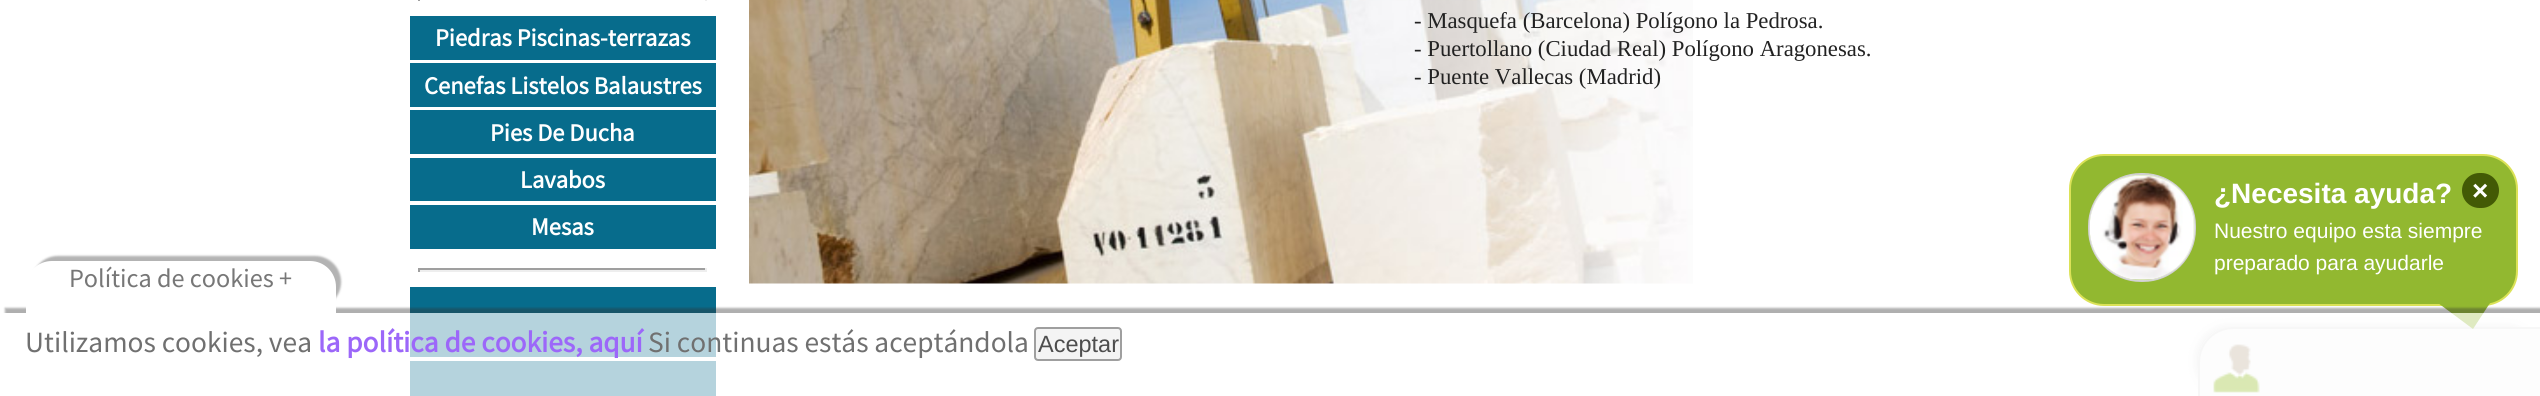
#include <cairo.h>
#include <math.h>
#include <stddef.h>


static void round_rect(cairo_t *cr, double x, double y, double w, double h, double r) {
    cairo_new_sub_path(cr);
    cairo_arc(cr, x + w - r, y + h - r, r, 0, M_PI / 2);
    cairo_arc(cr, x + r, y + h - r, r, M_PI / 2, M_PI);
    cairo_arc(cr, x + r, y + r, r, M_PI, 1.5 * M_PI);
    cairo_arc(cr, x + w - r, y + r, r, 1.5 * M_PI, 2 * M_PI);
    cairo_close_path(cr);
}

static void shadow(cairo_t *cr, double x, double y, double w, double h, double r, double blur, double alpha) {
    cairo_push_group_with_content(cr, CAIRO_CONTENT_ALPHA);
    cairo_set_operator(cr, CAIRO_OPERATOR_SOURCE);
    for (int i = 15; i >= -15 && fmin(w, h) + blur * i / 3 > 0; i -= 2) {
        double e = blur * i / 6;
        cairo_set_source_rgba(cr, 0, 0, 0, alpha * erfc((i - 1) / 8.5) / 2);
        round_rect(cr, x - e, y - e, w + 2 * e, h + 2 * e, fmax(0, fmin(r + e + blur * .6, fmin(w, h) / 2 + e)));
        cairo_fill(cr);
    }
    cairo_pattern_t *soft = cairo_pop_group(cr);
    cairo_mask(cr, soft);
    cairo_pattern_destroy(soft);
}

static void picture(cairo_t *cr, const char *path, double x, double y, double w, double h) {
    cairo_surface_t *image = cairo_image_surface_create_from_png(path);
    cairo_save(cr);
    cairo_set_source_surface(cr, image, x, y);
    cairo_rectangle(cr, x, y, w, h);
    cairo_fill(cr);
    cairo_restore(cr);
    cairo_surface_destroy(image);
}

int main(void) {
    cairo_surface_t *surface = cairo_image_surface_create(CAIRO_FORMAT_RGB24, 2540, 396);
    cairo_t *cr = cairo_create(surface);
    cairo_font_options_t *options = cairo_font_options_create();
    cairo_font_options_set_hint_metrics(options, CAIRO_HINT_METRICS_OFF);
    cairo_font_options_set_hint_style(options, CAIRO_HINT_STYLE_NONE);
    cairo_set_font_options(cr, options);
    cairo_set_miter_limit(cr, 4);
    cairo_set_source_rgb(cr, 1, 1, 1);
    cairo_paint(cr);
    cairo_set_source_rgb(cr, 0.933, 0.933, 0.933);
    cairo_rectangle(cr, 705, 0, 2, 1);
    cairo_fill(cr);
    cairo_set_source_rgb(cr, 0.624, 0.624, 0.624);
    cairo_rectangle(cr, 418, 0, 2, 1);
    cairo_fill(cr);
    cairo_set_source_rgb(cr, 0.031, 0.424, 0.549);
    cairo_rectangle(cr, 410, 16, 306, 44);
    cairo_fill(cr);
    cairo_select_font_face(cr, "Source Sans Pro", CAIRO_FONT_SLANT_NORMAL, CAIRO_FONT_WEIGHT_BOLD);
    cairo_set_font_size(cr, 24.5);
    cairo_set_source_rgb(cr, 1, 1, 1);
    cairo_move_to(cr, 435, 46);
    cairo_show_text(cr, "Piedras Piscinas-terrazas");
    cairo_set_source_rgb(cr, 0.031, 0.424, 0.549);
    cairo_rectangle(cr, 410, 63, 306, 44);
    cairo_fill(cr);
    cairo_set_source_rgb(cr, 1, 1, 1);
    cairo_move_to(cr, 424, 94);
    cairo_show_text(cr, "Cenefas Listelos Balaustres");
    cairo_set_source_rgb(cr, 0.031, 0.424, 0.549);
    cairo_rectangle(cr, 410, 110, 306, 44);
    cairo_fill(cr);
    cairo_set_source_rgb(cr, 1, 1, 1);
    cairo_move_to(cr, 490, 141);
    cairo_show_text(cr, "Pies De Ducha");
    cairo_set_source_rgb(cr, 0.031, 0.424, 0.549);
    cairo_rectangle(cr, 410, 158, 306, 43);
    cairo_fill(cr);
    cairo_set_source_rgb(cr, 1, 1, 1);
    cairo_move_to(cr, 520, 188);
    cairo_show_text(cr, "Lavabos");
    cairo_set_source_rgb(cr, 0.031, 0.424, 0.549);
    cairo_rectangle(cr, 410, 205, 306, 44);
    cairo_fill(cr);
    cairo_set_source_rgb(cr, 1, 1, 1);
    cairo_move_to(cr, 531, 235);
    cairo_show_text(cr, "Mesas");
    cairo_set_source_rgb(cr, 0.624, 0.624, 0.624);
    cairo_rectangle(cr, 418, 268, 289, 2);
    cairo_fill(cr);
    cairo_set_source_rgb(cr, 0.933, 0.933, 0.933);
    cairo_rectangle(cr, 705, 268, 2, 4);
    cairo_fill(cr);
    cairo_rectangle(cr, 418, 270, 289, 2);
    cairo_fill(cr);
    cairo_set_source_rgb(cr, 0.624, 0.624, 0.624);
    cairo_rectangle(cr, 418, 268, 2, 4);
    cairo_fill(cr);
    cairo_set_source_rgb(cr, 0.031, 0.424, 0.549);
    cairo_rectangle(cr, 410, 287, 306, 70);
    cairo_fill(cr);
    cairo_rectangle(cr, 410, 361, 306, 35);
    cairo_fill(cr);
    picture(cr, "img1.png", 749, 0, 944, 284);
    cairo_select_font_face(cr, "Liberation Serif", CAIRO_FONT_SLANT_NORMAL, CAIRO_FONT_WEIGHT_NORMAL);
    cairo_set_font_size(cr, 22.75);
    cairo_set_source_rgb(cr, 0.133, 0.133, 0.133);
    cairo_move_to(cr, 1414, 28);
    cairo_show_text(cr, "- Masquefa (Barcelona) Polígono la Pedrosa.");
    cairo_move_to(cr, 1414, 56);
    cairo_show_text(cr, "- Puertollano (Ciudad Real) Polígono Aragonesas.");
    cairo_move_to(cr, 1414, 84);
    cairo_show_text(cr, "- Puente Vallecas (Madrid)");
    cairo_set_source_rgb(cr, 0.196, 0.196, 0.196);
    shadow(cr, 2196, 326, 343, 70, 35, 4.5, 0.17);
    cairo_set_source_rgb(cr, 0.965, 0.965, 0.965);
    cairo_new_path(cr);
    cairo_move_to(cr, 2233, 327);
    cairo_line_to(cr, 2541, 327);
    cairo_line_to(cr, 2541, 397);
    cairo_line_to(cr, 2198, 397);
    cairo_line_to(cr, 2198, 362);
    cairo_curve_to(cr, 2198, 342.5, 2213.5, 327, 2233, 327);
    cairo_close_path(cr);
    cairo_fill(cr);
    cairo_set_source_rgb(cr, 0.89, 0.89, 0.89);
    cairo_set_fill_rule(cr, CAIRO_FILL_RULE_EVEN_ODD);
    cairo_new_path(cr);
    cairo_move_to(cr, 2233, 327);
    cairo_line_to(cr, 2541, 327);
    cairo_line_to(cr, 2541, 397);
    cairo_line_to(cr, 2198, 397);
    cairo_line_to(cr, 2198, 362);
    cairo_curve_to(cr, 2198, 343, 2214, 327, 2233, 327);
    cairo_close_path(cr);
    cairo_move_to(cr, 2233, 329);
    cairo_line_to(cr, 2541, 329);
    cairo_line_to(cr, 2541, 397);
    cairo_line_to(cr, 2200, 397);
    cairo_line_to(cr, 2200, 362);
    cairo_curve_to(cr, 2200, 344, 2215, 329, 2233, 329);
    cairo_close_path(cr);
    cairo_fill(cr);
    cairo_set_source_rgb(cr, 0.573, 0.722, 0.188);
    round_rect(cr, 2070, 155, 447, 150, 34);
    cairo_fill_preserve(cr);
    cairo_set_source_rgb(cr, 0.859, 0.886, 0.341);
    cairo_stroke(cr);
    cairo_set_source_rgb(cr, 0.573, 0.722, 0.188);
    cairo_set_fill_rule(cr, CAIRO_FILL_RULE_WINDING);
    cairo_new_path(cr);
    cairo_move_to(cr, 2438, 303);
    cairo_line_to(cr, 2490, 303);
    cairo_line_to(cr, 2473, 329);
    cairo_close_path(cr);
    cairo_fill(cr);
    picture(cr, "img3.png", 2213, 344, 47, 49);
    cairo_save(cr);
    cairo_set_fill_rule(cr, CAIRO_FILL_RULE_EVEN_ODD);
    cairo_new_path(cr);
    cairo_move_to(cr, 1, 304);
    cairo_line_to(cr, 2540, 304);
    cairo_line_to(cr, 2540, 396);
    cairo_line_to(cr, 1, 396);
    cairo_close_path(cr);
    cairo_move_to(cr, 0, 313);
    cairo_line_to(cr, 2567, 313);
    cairo_line_to(cr, 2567, 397);
    cairo_line_to(cr, 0, 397);
    cairo_close_path(cr);
    cairo_clip(cr);
    cairo_set_source_rgb(cr, 0.196, 0.196, 0.196);
    shadow(cr, 5, 308, 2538, 84, 0, 1, 0.39);
    cairo_restore(cr);
    cairo_set_source_rgba(cr, 1, 1, 1, 0.7);
    cairo_rectangle(cr, 4, 313, 2536, 83);
    cairo_fill(cr);
    cairo_set_source_rgb(cr, 0.467, 0.467, 0.467);
    shadow(cr, 32, 256, 309, 52, 26, 1, 0.56);
    cairo_set_source_rgb(cr, 1, 1, 1);
    cairo_new_path(cr);
    cairo_move_to(cr, 52, 261);
    cairo_line_to(cr, 310, 261);
    cairo_curve_to(cr, 324.5, 261, 336, 272.5, 336, 287);
    cairo_line_to(cr, 336, 313);
    cairo_line_to(cr, 26, 313);
    cairo_line_to(cr, 26, 287);
    cairo_curve_to(cr, 26, 272.5, 37.5, 261, 52, 261);
    cairo_close_path(cr);
    cairo_fill(cr);
    cairo_select_font_face(cr, "Source Sans Pro", CAIRO_FONT_SLANT_NORMAL, CAIRO_FONT_WEIGHT_NORMAL);
    cairo_set_font_size(cr, 26.25);
    cairo_set_source_rgb(cr, 0.467, 0.467, 0.467);
    cairo_move_to(cr, 69, 287);
    cairo_show_text(cr, "Política de cookies +");
    cairo_set_font_size(cr, 29.4);
    cairo_set_source_rgb(cr, 0.439, 0.439, 0.439);
    cairo_move_to(cr, 25, 352);
    cairo_show_text(cr, "Utilizamos cookies, vea");
    cairo_select_font_face(cr, "Source Sans Pro", CAIRO_FONT_SLANT_NORMAL, CAIRO_FONT_WEIGHT_BOLD);
    cairo_set_source_rgb(cr, 0.612, 0.404, 0.973);
    cairo_move_to(cr, 318, 352);
    cairo_show_text(cr, "la política de cookies, aquí");
    cairo_select_font_face(cr, "Source Sans Pro", CAIRO_FONT_SLANT_NORMAL, CAIRO_FONT_WEIGHT_NORMAL);
    cairo_set_source_rgb(cr, 0.439, 0.439, 0.439);
    cairo_move_to(cr, 648, 352);
    cairo_show_text(cr, "Si continuas estás aceptándola");
    cairo_set_source_rgb(cr, 0.957, 0.957, 0.957);
    round_rect(cr, 1035, 328, 86, 32, 3);
    cairo_fill_preserve(cr);
    cairo_set_source_rgb(cr, 0.624, 0.624, 0.624);
    cairo_stroke(cr);
    cairo_select_font_face(cr, "Liberation Sans", CAIRO_FONT_SLANT_NORMAL, CAIRO_FONT_WEIGHT_NORMAL);
    cairo_set_font_size(cr, 23.5);
    cairo_set_source_rgb(cr, 0.302, 0.302, 0.302);
    cairo_move_to(cr, 1038, 352);
    cairo_show_text(cr, "Aceptar");
    round_rect(cr, 2089, 174, 106, 107, 52);
    cairo_set_source_rgb(cr, 0.816, 0.816, 0.816);
    cairo_stroke(cr);
    picture(cr, "img2.png", 2089, 175, 106, 106);
    cairo_select_font_face(cr, "Liberation Sans", CAIRO_FONT_SLANT_NORMAL, CAIRO_FONT_WEIGHT_BOLD);
    cairo_set_font_size(cr, 28);
    cairo_set_source_rgb(cr, 1, 1, 1);
    cairo_move_to(cr, 2214, 203);
    cairo_show_text(cr, "¿Necesita ayuda?");
    cairo_set_source_rgb(cr, 0.263, 0.353, 0.02);
    round_rect(cr, 2462, 173, 37, 35, 17.5);
    cairo_fill(cr);
    cairo_set_source_rgb(cr, 1, 1, 1);
    cairo_move_to(cr, 2472, 200);
    cairo_show_text(cr, "×");
    cairo_select_font_face(cr, "Liberation Sans", CAIRO_FONT_SLANT_NORMAL, CAIRO_FONT_WEIGHT_NORMAL);
    cairo_set_font_size(cr, 21);
    cairo_move_to(cr, 2214, 238);
    cairo_show_text(cr, "Nuestro equipo esta siempre");
    cairo_move_to(cr, 2214, 270);
    cairo_show_text(cr, "preparado para ayudarle");
    cairo_surface_write_to_png(surface, "page.png");
    cairo_font_options_destroy(options);
    cairo_destroy(cr);
    cairo_surface_destroy(surface);
    return 0;
}
